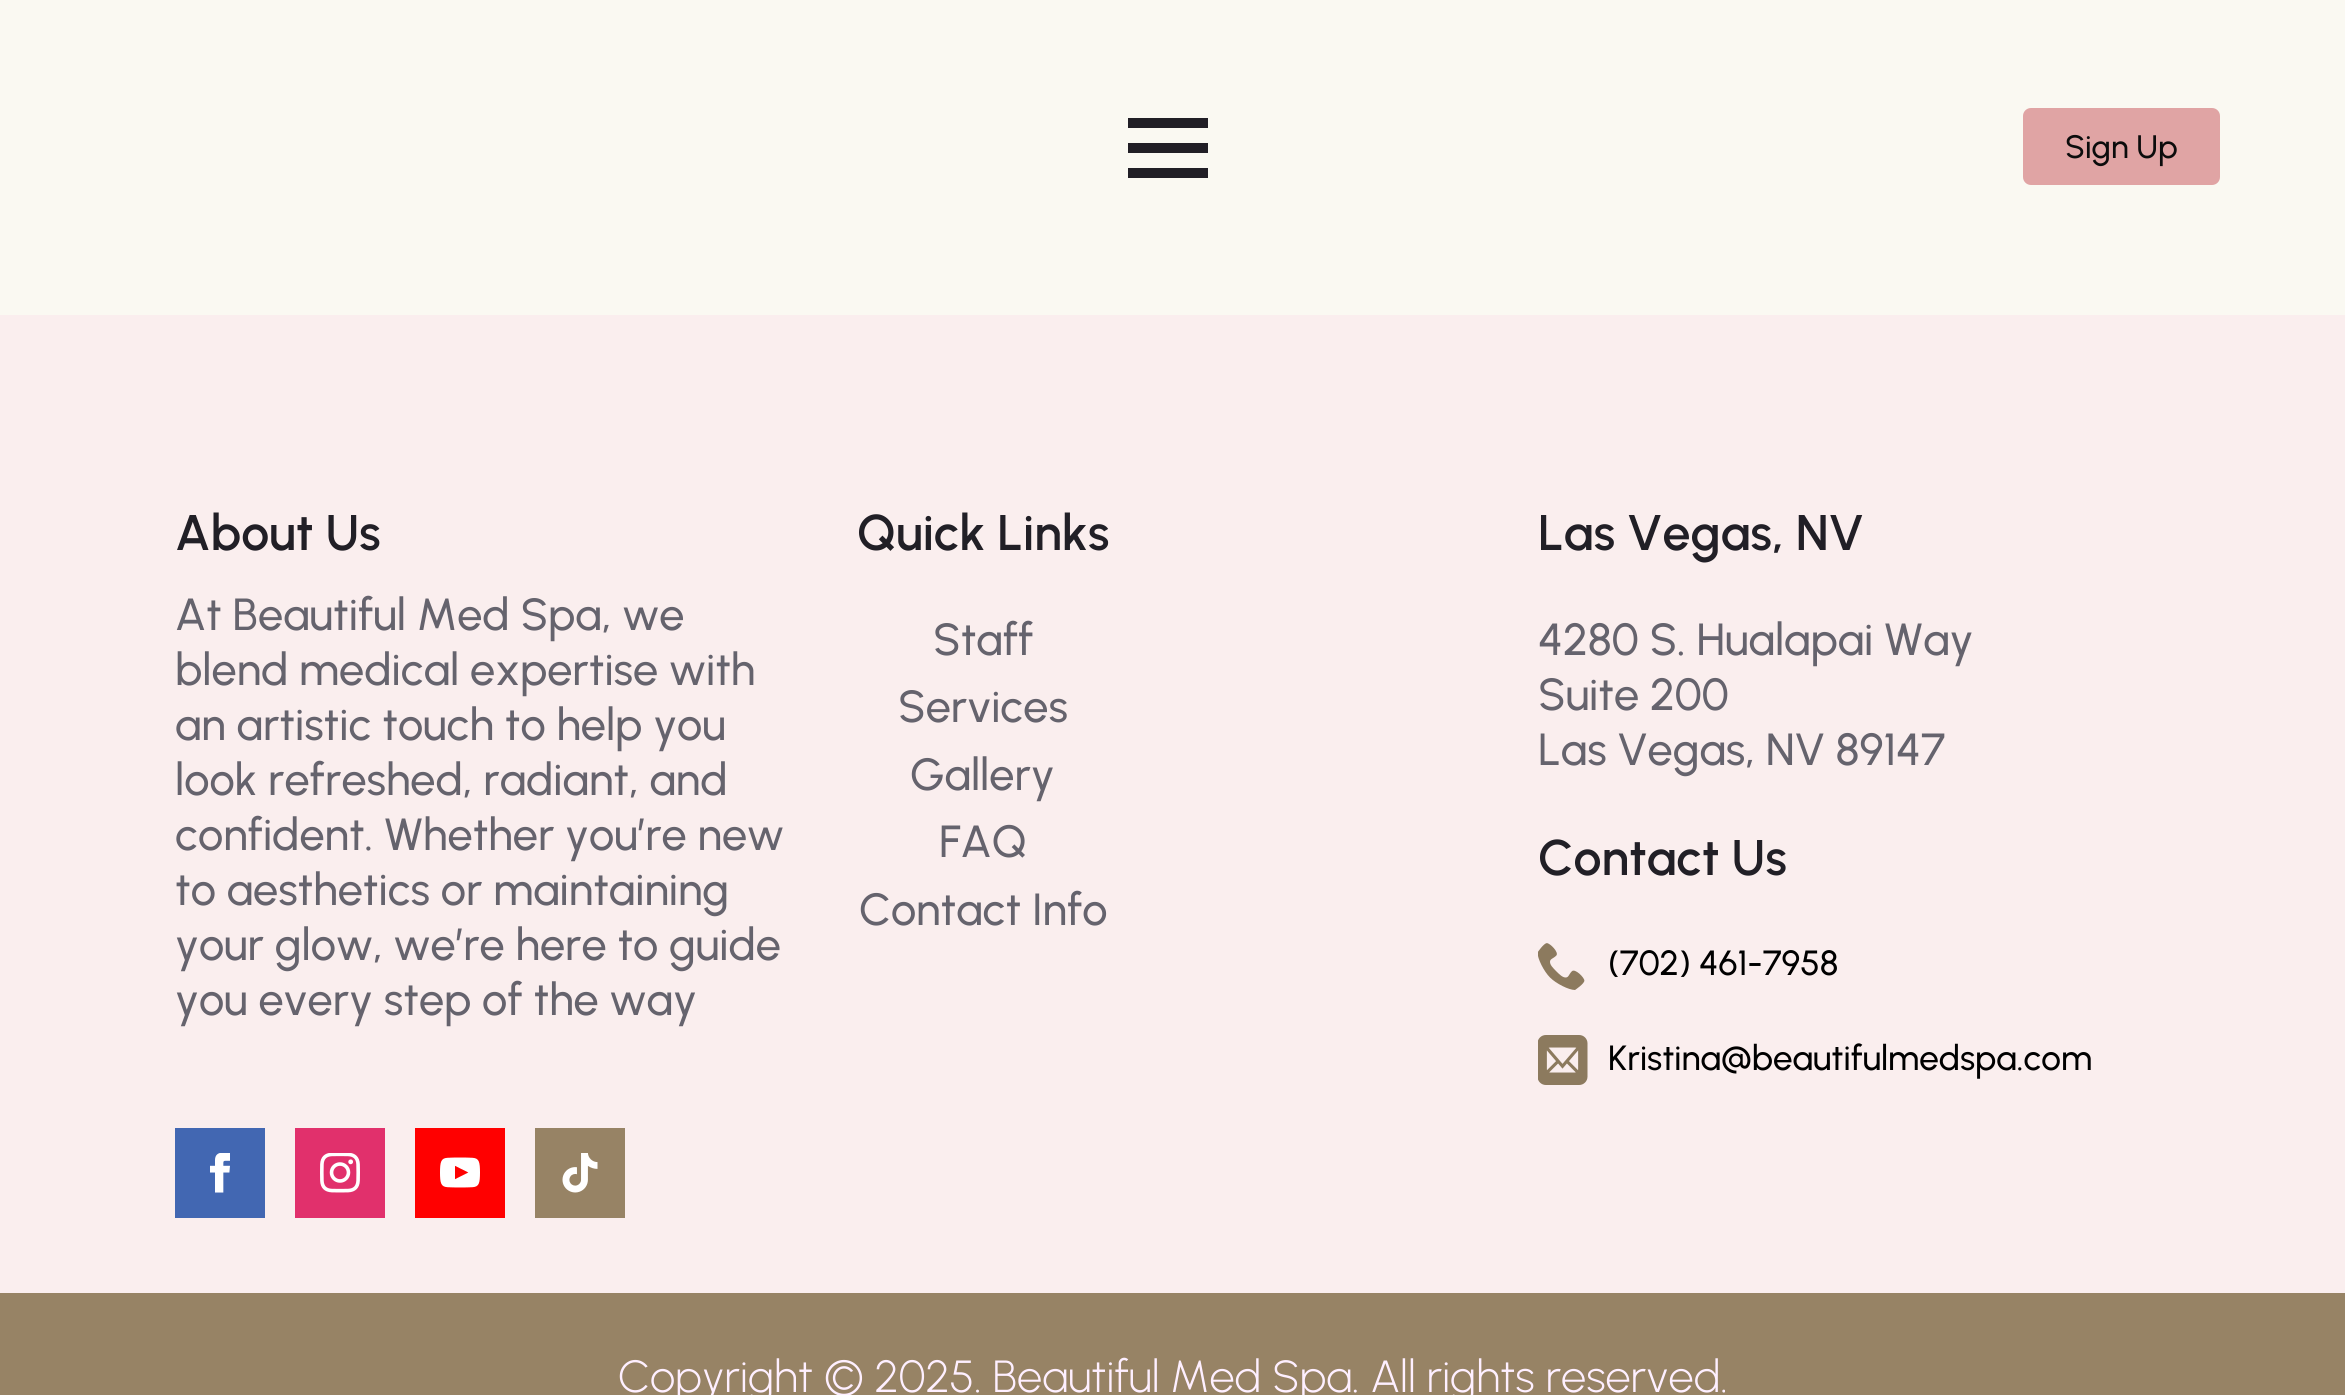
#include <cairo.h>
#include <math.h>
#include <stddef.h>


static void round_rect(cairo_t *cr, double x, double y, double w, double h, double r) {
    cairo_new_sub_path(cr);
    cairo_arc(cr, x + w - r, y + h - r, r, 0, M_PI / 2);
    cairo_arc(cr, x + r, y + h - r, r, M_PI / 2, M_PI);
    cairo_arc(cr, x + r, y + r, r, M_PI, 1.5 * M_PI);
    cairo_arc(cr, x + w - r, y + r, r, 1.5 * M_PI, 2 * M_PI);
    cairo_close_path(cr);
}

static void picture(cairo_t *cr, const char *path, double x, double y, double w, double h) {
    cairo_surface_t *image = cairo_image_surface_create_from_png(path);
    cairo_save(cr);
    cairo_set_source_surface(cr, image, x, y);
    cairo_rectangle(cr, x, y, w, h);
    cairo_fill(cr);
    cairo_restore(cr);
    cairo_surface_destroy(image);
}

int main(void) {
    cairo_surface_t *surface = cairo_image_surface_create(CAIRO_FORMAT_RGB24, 2345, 1395);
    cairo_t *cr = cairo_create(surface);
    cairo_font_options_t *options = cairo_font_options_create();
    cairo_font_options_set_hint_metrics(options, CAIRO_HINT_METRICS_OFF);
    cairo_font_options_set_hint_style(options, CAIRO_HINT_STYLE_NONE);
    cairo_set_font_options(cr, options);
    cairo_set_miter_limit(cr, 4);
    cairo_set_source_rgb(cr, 0.98, 0.976, 0.949);
    cairo_paint(cr);
    cairo_set_source_rgb(cr, 0.129, 0.122, 0.149);
    cairo_rectangle(cr, 1128, 143, 80, 10);
    cairo_fill(cr);
    cairo_rectangle(cr, 1128, 118, 80, 10);
    cairo_fill(cr);
    cairo_rectangle(cr, 1128, 168, 80, 10);
    cairo_fill(cr);
    cairo_set_source_rgb(cr, 0.878, 0.643, 0.643);
    round_rect(cr, 2023, 108, 197, 77, 8);
    cairo_fill(cr);
    cairo_select_font_face(cr, "Urbanist Medium", CAIRO_FONT_SLANT_NORMAL, CAIRO_FONT_WEIGHT_NORMAL);
    cairo_set_font_size(cr, 32.5);
    cairo_set_source_rgb(cr, 0.047, 0.047, 0.047);
    cairo_move_to(cr, 2065, 158);
    cairo_show_text(cr, "Sign Up");
    cairo_set_source_rgb(cr, 0.98, 0.933, 0.933);
    cairo_rectangle(cr, 0, 315, 2345, 978);
    cairo_fill(cr);
    cairo_select_font_face(cr, "Urbanist SemiBold", CAIRO_FONT_SLANT_NORMAL, CAIRO_FONT_WEIGHT_NORMAL);
    cairo_set_font_size(cr, 50);
    cairo_set_source_rgb(cr, 0.129, 0.122, 0.149);
    cairo_move_to(cr, 175, 550);
    cairo_show_text(cr, "About Us");
    cairo_select_font_face(cr, "Urbanist Medium", CAIRO_FONT_SLANT_NORMAL, CAIRO_FONT_WEIGHT_NORMAL);
    cairo_set_font_size(cr, 45);
    cairo_set_source_rgb(cr, 0.396, 0.388, 0.427);
    cairo_move_to(cr, 175, 630);
    cairo_show_text(cr, "At Beautiful Med Spa, we");
    cairo_move_to(cr, 175, 685);
    cairo_show_text(cr, "blend medical expertise with");
    cairo_move_to(cr, 175, 740);
    cairo_show_text(cr, "an artistic touch to help you");
    cairo_move_to(cr, 175, 795);
    cairo_show_text(cr, "look refreshed, radiant, and");
    cairo_move_to(cr, 175, 850);
    cairo_show_text(cr, "confident. Whether you’re new");
    cairo_move_to(cr, 175, 905);
    cairo_show_text(cr, "to aesthetics or maintaining");
    cairo_move_to(cr, 175, 960);
    cairo_show_text(cr, "your glow, we’re here to guide");
    cairo_move_to(cr, 175, 1015);
    cairo_show_text(cr, "you every step of the way");
    cairo_set_source_rgb(cr, 0.259, 0.404, 0.698);
    cairo_rectangle(cr, 175, 1128, 90, 90);
    cairo_fill(cr);
    picture(cr, "img1.png", 210, 1153, 20, 40);
    cairo_set_source_rgb(cr, 0.882, 0.188, 0.424);
    cairo_rectangle(cr, 295, 1128, 90, 90);
    cairo_fill(cr);
    picture(cr, "img2.png", 320, 1153, 40, 40);
    cairo_set_source_rgb(cr, 1, 0, 0);
    cairo_rectangle(cr, 415, 1128, 90, 90);
    cairo_fill(cr);
    picture(cr, "img3.png", 440, 1157, 40, 31);
    cairo_set_source_rgb(cr, 0.592, 0.514, 0.396);
    cairo_rectangle(cr, 535, 1128, 90, 90);
    cairo_fill(cr);
    picture(cr, "img4.png", 562, 1153, 36, 40);
    cairo_select_font_face(cr, "Urbanist SemiBold", CAIRO_FONT_SLANT_NORMAL, CAIRO_FONT_WEIGHT_NORMAL);
    cairo_set_font_size(cr, 50);
    cairo_set_source_rgb(cr, 0.129, 0.122, 0.149);
    cairo_move_to(cr, 857, 550);
    cairo_show_text(cr, "Quick Links");
    cairo_select_font_face(cr, "Urbanist Medium", CAIRO_FONT_SLANT_NORMAL, CAIRO_FONT_WEIGHT_NORMAL);
    cairo_set_font_size(cr, 45);
    cairo_set_source_rgb(cr, 0.396, 0.388, 0.427);
    cairo_move_to(cr, 933, 655);
    cairo_show_text(cr, "Staff");
    cairo_move_to(cr, 898, 722);
    cairo_show_text(cr, "Services");
    cairo_move_to(cr, 910, 790);
    cairo_show_text(cr, "Gallery");
    cairo_move_to(cr, 939, 857);
    cairo_show_text(cr, "FAQ");
    cairo_move_to(cr, 859, 925);
    cairo_show_text(cr, "Contact Info");
    cairo_select_font_face(cr, "Urbanist SemiBold", CAIRO_FONT_SLANT_NORMAL, CAIRO_FONT_WEIGHT_NORMAL);
    cairo_set_font_size(cr, 50);
    cairo_set_source_rgb(cr, 0.129, 0.122, 0.149);
    cairo_move_to(cr, 1538, 550);
    cairo_show_text(cr, "Las Vegas, NV");
    cairo_select_font_face(cr, "Urbanist Medium", CAIRO_FONT_SLANT_NORMAL, CAIRO_FONT_WEIGHT_NORMAL);
    cairo_set_font_size(cr, 45);
    cairo_set_source_rgb(cr, 0.396, 0.388, 0.427);
    cairo_move_to(cr, 1538, 655);
    cairo_show_text(cr, "4280 S. Hualapai Way");
    cairo_move_to(cr, 1538, 710);
    cairo_show_text(cr, "Suite 200");
    cairo_move_to(cr, 1538, 765);
    cairo_show_text(cr, "Las Vegas, NV 89147");
    cairo_select_font_face(cr, "Urbanist SemiBold", CAIRO_FONT_SLANT_NORMAL, CAIRO_FONT_WEIGHT_NORMAL);
    cairo_set_font_size(cr, 50);
    cairo_set_source_rgb(cr, 0.129, 0.122, 0.149);
    cairo_move_to(cr, 1538, 875);
    cairo_show_text(cr, "Contact Us");
    picture(cr, "img5.png", 1538, 943, 47, 47);
    cairo_select_font_face(cr, "Urbanist Medium", CAIRO_FONT_SLANT_NORMAL, CAIRO_FONT_WEIGHT_NORMAL);
    cairo_set_font_size(cr, 35);
    cairo_set_source_rgb(cr, 0, 0, 0);
    cairo_move_to(cr, 1608, 975);
    cairo_show_text(cr, "(702) 461-7958");
    picture(cr, "img6.png", 1538, 1035, 50, 50);
    cairo_move_to(cr, 1608, 1070);
    cairo_show_text(cr, "Kristina@beautifulmedspa.com");
    cairo_set_source_rgb(cr, 0.592, 0.514, 0.396);
    cairo_rectangle(cr, 0, 1293, 2345, 102);
    cairo_fill(cr);
    cairo_select_font_face(cr, "Urbanist Light", CAIRO_FONT_SLANT_NORMAL, CAIRO_FONT_WEIGHT_NORMAL);
    cairo_set_font_size(cr, 45);
    cairo_set_source_rgb(cr, 0.996, 0.937, 1);
    cairo_move_to(cr, 618, 1392);
    cairo_show_text(cr, "Copyright © 2025. Beautiful Med Spa. All rights reserved.");
    cairo_surface_write_to_png(surface, "page.png");
    cairo_font_options_destroy(options);
    cairo_destroy(cr);
    cairo_surface_destroy(surface);
    return 0;
}
